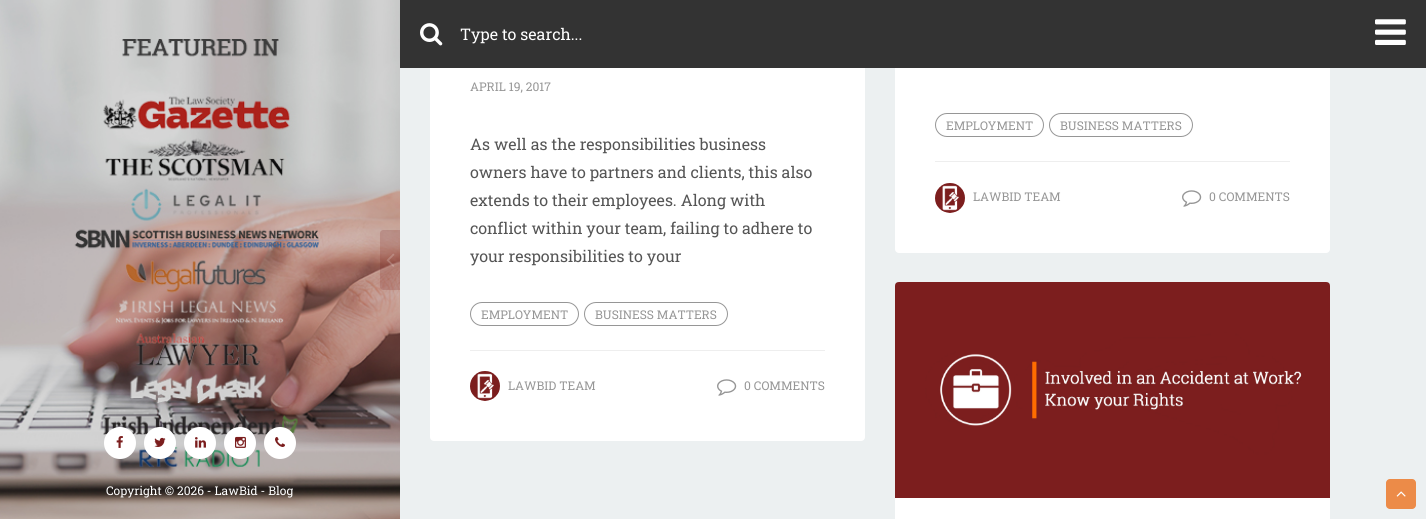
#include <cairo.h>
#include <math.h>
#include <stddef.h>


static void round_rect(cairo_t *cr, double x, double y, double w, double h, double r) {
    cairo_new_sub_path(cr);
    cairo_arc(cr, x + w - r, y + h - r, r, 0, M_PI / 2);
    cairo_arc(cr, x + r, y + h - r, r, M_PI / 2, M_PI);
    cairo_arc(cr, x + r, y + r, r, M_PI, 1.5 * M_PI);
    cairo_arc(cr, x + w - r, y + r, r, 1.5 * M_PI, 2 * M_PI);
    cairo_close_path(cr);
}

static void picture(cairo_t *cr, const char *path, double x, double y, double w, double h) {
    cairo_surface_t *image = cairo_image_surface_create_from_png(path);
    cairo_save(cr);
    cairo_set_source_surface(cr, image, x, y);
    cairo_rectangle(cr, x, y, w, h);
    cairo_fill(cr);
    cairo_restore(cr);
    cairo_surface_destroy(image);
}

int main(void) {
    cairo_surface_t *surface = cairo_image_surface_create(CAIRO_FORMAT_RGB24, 1426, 519);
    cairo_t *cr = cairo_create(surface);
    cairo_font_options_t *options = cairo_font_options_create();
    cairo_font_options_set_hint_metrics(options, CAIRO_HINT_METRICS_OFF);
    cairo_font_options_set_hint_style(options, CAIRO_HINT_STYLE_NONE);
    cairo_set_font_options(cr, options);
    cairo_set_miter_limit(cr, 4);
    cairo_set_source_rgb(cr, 0.925, 0.941, 0.945);
    cairo_paint(cr);
    cairo_set_source_rgb(cr, 1, 1, 1);
    round_rect(cr, 430, -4, 435, 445, 4);
    cairo_fill(cr);
    round_rect(cr, 895, -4, 435, 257, 4);
    cairo_fill(cr);
    cairo_set_source_rgb(cr, 0.2, 0.2, 0.2);
    cairo_rectangle(cr, 400, 0, 1026, 68);
    cairo_fill(cr);
    picture(cr, "img1.png", 420, 23, 23, 23);
    cairo_select_font_face(cr, "Roboto Slab", CAIRO_FONT_SLANT_NORMAL, CAIRO_FONT_WEIGHT_NORMAL);
    cairo_set_font_size(cr, 16);
    cairo_set_source_rgb(cr, 1, 1, 1);
    cairo_move_to(cr, 460, 40);
    cairo_show_text(cr, "Type to search...");
    picture(cr, "img2.png", 1375, 19, 31, 26);
    cairo_set_font_size(cr, 12);
    cairo_set_source_rgb(cr, 0.588, 0.588, 0.588);
    cairo_move_to(cr, 470, 91);
    cairo_show_text(cr, "APRIL 19, 2017");
    cairo_set_font_size(cr, 16);
    cairo_set_source_rgb(cr, 0.333, 0.333, 0.333);
    cairo_move_to(cr, 470, 150);
    cairo_show_text(cr, "As well as the responsibilities business");
    cairo_move_to(cr, 470, 178);
    cairo_show_text(cr, "owners have to partners and clients, this also");
    cairo_move_to(cr, 470, 206);
    cairo_show_text(cr, "extends to their employees. Along with");
    cairo_move_to(cr, 470, 234);
    cairo_show_text(cr, "conflict within your team, failing to adhere to");
    cairo_move_to(cr, 470, 262);
    cairo_show_text(cr, "your responsibilities to your");
    round_rect(cr, 470.5, 302.5, 108, 23, 11.5);
    cairo_set_source_rgb(cr, 0.588, 0.588, 0.588);
    cairo_set_line_width(cr, 1);
    cairo_stroke(cr);
    cairo_set_font_size(cr, 12);
    cairo_move_to(cr, 481, 319);
    cairo_show_text(cr, "EMPLOYMENT");
    round_rect(cr, 584.5, 302.5, 143, 23, 11.5);
    cairo_stroke(cr);
    cairo_move_to(cr, 595, 319);
    cairo_show_text(cr, "BUSINESS MATTERS");
    cairo_set_source_rgb(cr, 0.933, 0.933, 0.933);
    cairo_rectangle(cr, 470, 350, 355, 1);
    cairo_fill(cr);
    picture(cr, "img3.png", 470, 371, 30, 30);
    cairo_set_source_rgb(cr, 0.588, 0.588, 0.588);
    cairo_move_to(cr, 508, 390);
    cairo_show_text(cr, "LAWBID TEAM");
    picture(cr, "img4.png", 717, 379, 20, 17);
    cairo_move_to(cr, 744, 390);
    cairo_show_text(cr, "0 COMMENTS");
    round_rect(cr, 935.5, 113.5, 108, 23, 11.5);
    cairo_stroke(cr);
    cairo_move_to(cr, 946, 130);
    cairo_show_text(cr, "EMPLOYMENT");
    round_rect(cr, 1049.5, 113.5, 143, 23, 11.5);
    cairo_stroke(cr);
    cairo_move_to(cr, 1060, 130);
    cairo_show_text(cr, "BUSINESS MATTERS");
    cairo_set_source_rgb(cr, 0.933, 0.933, 0.933);
    cairo_rectangle(cr, 935, 161, 355, 1);
    cairo_fill(cr);
    picture(cr, "img3.png", 935, 183, 30, 30);
    cairo_set_source_rgb(cr, 0.588, 0.588, 0.588);
    cairo_move_to(cr, 973, 201);
    cairo_show_text(cr, "LAWBID TEAM");
    picture(cr, "img4.png", 1182, 190, 20, 17);
    cairo_move_to(cr, 1209, 201);
    cairo_show_text(cr, "0 COMMENTS");
    cairo_set_source_rgb(cr, 1, 1, 1);
    round_rect(cr, 895, 282, 435, 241, 4);
    cairo_fill(cr);
    picture(cr, "img5.png", 895, 282, 435, 216);
    picture(cr, "img6.png", 0, 0, 400, 519);
    cairo_set_source_rgba(cr, 0.482, 0.118, 0.118, 0.2);
    cairo_new_path(cr);
    cairo_move_to(cr, 383, 230);
    cairo_line_to(cr, 400, 230);
    cairo_line_to(cr, 400, 290);
    cairo_line_to(cr, 383, 290);
    cairo_curve_to(cr, 381.5, 290, 380, 288.5, 380, 287);
    cairo_line_to(cr, 380, 233);
    cairo_curve_to(cr, 380, 231.5, 381.5, 230, 383, 230);
    cairo_close_path(cr);
    cairo_fill(cr);
    picture(cr, "img7.png", 386, 253, 9, 14);
    cairo_set_source_rgb(cr, 1, 1, 1);
    cairo_arc(cr, 120, 443, 16, 0, 2 * M_PI);
    cairo_fill(cr);
    picture(cr, "img8.png", 116, 436, 7, 12);
    cairo_arc(cr, 160, 443, 16, 0, 2 * M_PI);
    cairo_fill(cr);
    picture(cr, "img9.png", 154, 437, 12, 10);
    cairo_arc(cr, 200, 443, 16, 0, 2 * M_PI);
    cairo_fill(cr);
    picture(cr, "img10.png", 195, 437, 11, 11);
    cairo_arc(cr, 240, 443, 16, 0, 2 * M_PI);
    cairo_fill(cr);
    picture(cr, "img11.png", 235, 436, 11, 12);
    cairo_arc(cr, 280, 443, 16, 0, 2 * M_PI);
    cairo_fill(cr);
    picture(cr, "img12.png", 275, 437, 10, 10);
    cairo_move_to(cr, 106, 495);
    cairo_show_text(cr, "Copyright © 2026 - LawBid - Blog");
    cairo_set_source_rgb(cr, 0.922, 0.545, 0.282);
    round_rect(cr, 1386, 479, 30, 30, 4);
    cairo_fill(cr);
    picture(cr, "img13.png", 1396, 491, 10, 6);
    cairo_surface_write_to_png(surface, "page.png");
    cairo_font_options_destroy(options);
    cairo_destroy(cr);
    cairo_surface_destroy(surface);
    return 0;
}
